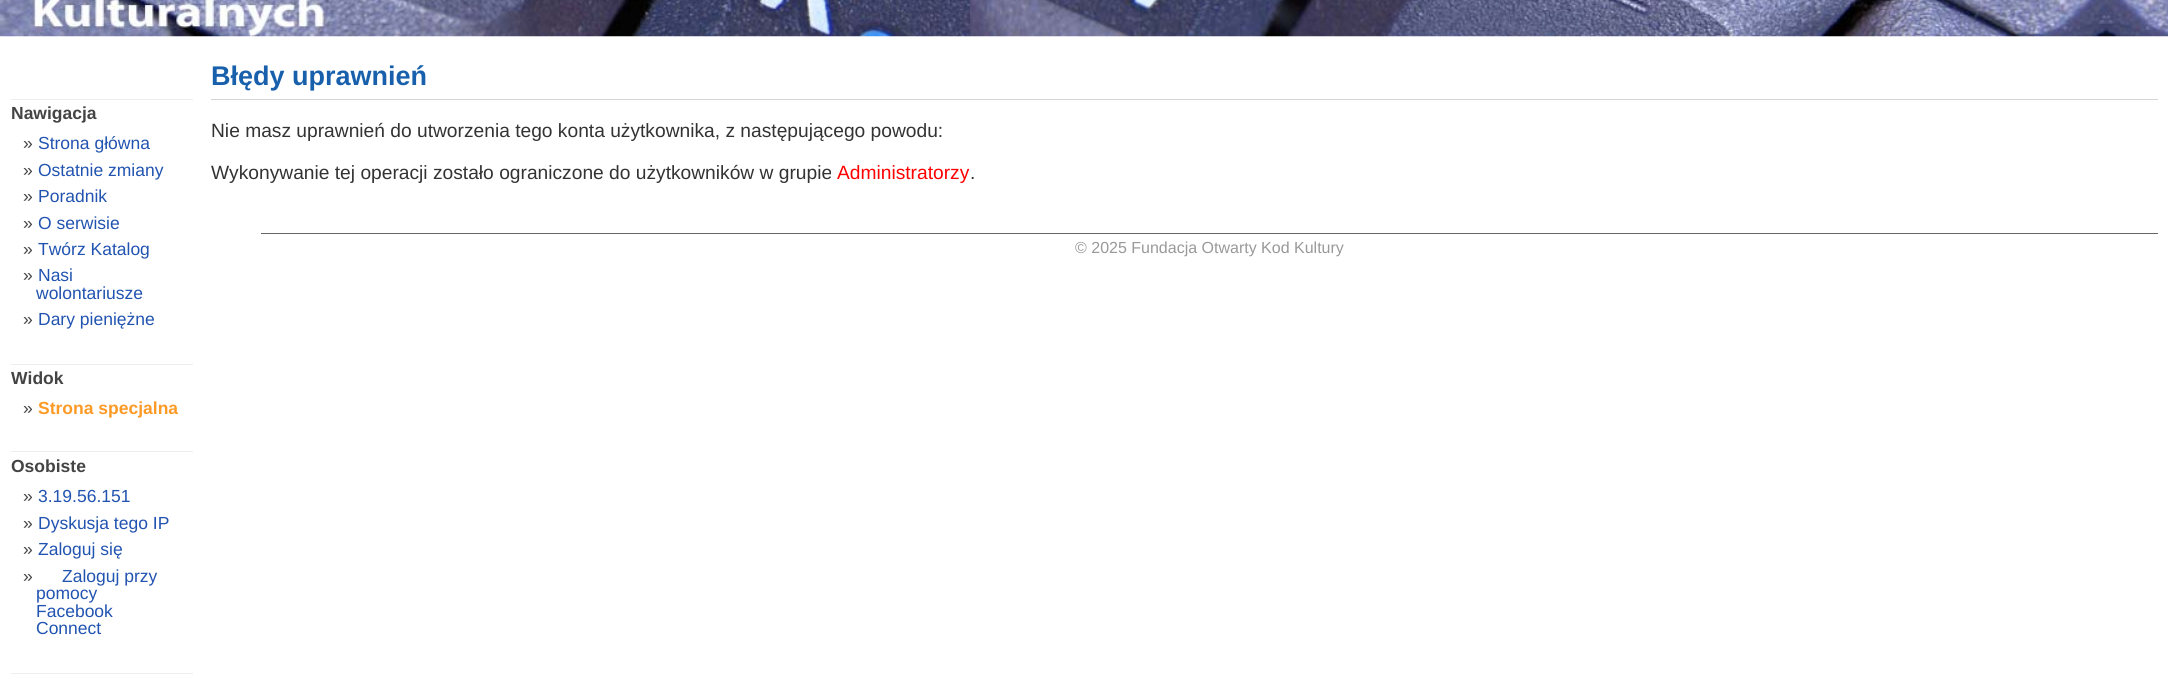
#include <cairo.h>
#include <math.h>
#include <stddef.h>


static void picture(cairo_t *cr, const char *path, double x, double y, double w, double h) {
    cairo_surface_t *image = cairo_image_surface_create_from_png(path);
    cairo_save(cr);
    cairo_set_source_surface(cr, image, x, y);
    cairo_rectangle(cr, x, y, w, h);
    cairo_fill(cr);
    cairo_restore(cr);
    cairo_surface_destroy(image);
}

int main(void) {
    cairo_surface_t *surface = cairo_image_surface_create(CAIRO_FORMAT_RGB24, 2168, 682);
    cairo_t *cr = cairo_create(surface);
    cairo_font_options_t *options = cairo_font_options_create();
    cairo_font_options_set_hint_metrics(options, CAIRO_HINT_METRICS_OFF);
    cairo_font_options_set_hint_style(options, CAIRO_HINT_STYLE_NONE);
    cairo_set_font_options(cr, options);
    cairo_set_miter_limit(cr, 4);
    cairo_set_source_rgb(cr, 1, 1, 1);
    cairo_paint(cr);
    picture(cr, "img1.png", 0, 0, 2168, 37);
    cairo_set_source_rgb(cr, 0.933, 0.933, 0.933);
    cairo_rectangle(cr, 11, 99, 182, 1);
    cairo_fill(cr);
    cairo_select_font_face(cr, "Liberation Sans", CAIRO_FONT_SLANT_NORMAL, CAIRO_FONT_WEIGHT_BOLD);
    cairo_set_font_size(cr, 17.5);
    cairo_set_source_rgb(cr, 0.267, 0.267, 0.267);
    cairo_move_to(cr, 11, 119);
    cairo_show_text(cr, "Nawigacja");
    cairo_select_font_face(cr, "Liberation Sans", CAIRO_FONT_SLANT_NORMAL, CAIRO_FONT_WEIGHT_NORMAL);
    cairo_move_to(cr, 23, 149);
    cairo_show_text(cr, "»");
    cairo_set_source_rgb(cr, 0.129, 0.325, 0.69);
    cairo_move_to(cr, 38, 149);
    cairo_show_text(cr, "Strona główna");
    cairo_set_source_rgb(cr, 0.267, 0.267, 0.267);
    cairo_move_to(cr, 23, 176);
    cairo_show_text(cr, "»");
    cairo_set_source_rgb(cr, 0.129, 0.325, 0.69);
    cairo_move_to(cr, 38, 176);
    cairo_show_text(cr, "Ostatnie zmiany");
    cairo_set_source_rgb(cr, 0.267, 0.267, 0.267);
    cairo_move_to(cr, 23, 202);
    cairo_show_text(cr, "»");
    cairo_set_source_rgb(cr, 0.129, 0.325, 0.69);
    cairo_move_to(cr, 38, 202);
    cairo_show_text(cr, "Poradnik");
    cairo_set_source_rgb(cr, 0.267, 0.267, 0.267);
    cairo_move_to(cr, 23, 229);
    cairo_show_text(cr, "»");
    cairo_set_source_rgb(cr, 0.129, 0.325, 0.69);
    cairo_move_to(cr, 38, 229);
    cairo_show_text(cr, "O serwisie");
    cairo_set_source_rgb(cr, 0.267, 0.267, 0.267);
    cairo_move_to(cr, 23, 255);
    cairo_show_text(cr, "»");
    cairo_set_source_rgb(cr, 0.129, 0.325, 0.69);
    cairo_move_to(cr, 38, 255);
    cairo_show_text(cr, "Twórz Katalog");
    cairo_set_source_rgb(cr, 0.267, 0.267, 0.267);
    cairo_move_to(cr, 23, 281);
    cairo_show_text(cr, "»");
    cairo_set_source_rgb(cr, 0.129, 0.325, 0.69);
    cairo_move_to(cr, 38, 281);
    cairo_show_text(cr, "Nasi");
    cairo_move_to(cr, 36, 299);
    cairo_show_text(cr, "wolontariusze");
    cairo_set_source_rgb(cr, 0.267, 0.267, 0.267);
    cairo_move_to(cr, 23, 325);
    cairo_show_text(cr, "»");
    cairo_set_source_rgb(cr, 0.129, 0.325, 0.69);
    cairo_move_to(cr, 38, 325);
    cairo_show_text(cr, "Dary pieniężne");
    cairo_set_source_rgb(cr, 0.933, 0.933, 0.933);
    cairo_rectangle(cr, 11, 364, 182, 1);
    cairo_fill(cr);
    cairo_select_font_face(cr, "Liberation Sans", CAIRO_FONT_SLANT_NORMAL, CAIRO_FONT_WEIGHT_BOLD);
    cairo_set_source_rgb(cr, 0.267, 0.267, 0.267);
    cairo_move_to(cr, 11, 384);
    cairo_show_text(cr, "Widok");
    cairo_select_font_face(cr, "Liberation Sans", CAIRO_FONT_SLANT_NORMAL, CAIRO_FONT_WEIGHT_NORMAL);
    cairo_move_to(cr, 23, 414);
    cairo_show_text(cr, "»");
    cairo_select_font_face(cr, "Liberation Sans", CAIRO_FONT_SLANT_NORMAL, CAIRO_FONT_WEIGHT_BOLD);
    cairo_set_source_rgb(cr, 0.992, 0.604, 0.149);
    cairo_move_to(cr, 38, 414);
    cairo_show_text(cr, "Strona specjalna");
    cairo_set_source_rgb(cr, 0.933, 0.933, 0.933);
    cairo_rectangle(cr, 11, 451, 182, 1);
    cairo_fill(cr);
    cairo_set_source_rgb(cr, 0.267, 0.267, 0.267);
    cairo_move_to(cr, 11, 472);
    cairo_show_text(cr, "Osobiste");
    cairo_select_font_face(cr, "Liberation Sans", CAIRO_FONT_SLANT_NORMAL, CAIRO_FONT_WEIGHT_NORMAL);
    cairo_move_to(cr, 23, 502);
    cairo_show_text(cr, "»");
    cairo_set_source_rgb(cr, 0.129, 0.325, 0.69);
    cairo_move_to(cr, 38, 502);
    cairo_show_text(cr, "3.19.56.151");
    cairo_set_source_rgb(cr, 0.267, 0.267, 0.267);
    cairo_move_to(cr, 23, 529);
    cairo_show_text(cr, "»");
    cairo_set_source_rgb(cr, 0.129, 0.325, 0.69);
    cairo_move_to(cr, 38, 529);
    cairo_show_text(cr, "Dyskusja tego IP");
    cairo_set_source_rgb(cr, 0.267, 0.267, 0.267);
    cairo_move_to(cr, 23, 555);
    cairo_show_text(cr, "»");
    cairo_set_source_rgb(cr, 0.129, 0.325, 0.69);
    cairo_move_to(cr, 38, 555);
    cairo_show_text(cr, "Zaloguj się");
    cairo_set_source_rgb(cr, 0.267, 0.267, 0.267);
    cairo_move_to(cr, 23, 582);
    cairo_show_text(cr, "»");
    cairo_set_source_rgb(cr, 0.129, 0.325, 0.69);
    cairo_move_to(cr, 62, 582);
    cairo_show_text(cr, "Zaloguj przy");
    cairo_move_to(cr, 36, 599);
    cairo_show_text(cr, "pomocy");
    cairo_move_to(cr, 36, 617);
    cairo_show_text(cr, "Facebook");
    cairo_move_to(cr, 36, 634);
    cairo_show_text(cr, "Connect");
    cairo_set_source_rgb(cr, 0.933, 0.933, 0.933);
    cairo_rectangle(cr, 11, 673, 182, 1);
    cairo_fill(cr);
    cairo_set_source_rgb(cr, 0.835, 0.835, 0.835);
    cairo_rectangle(cr, 211, 99, 1947, 1);
    cairo_fill(cr);
    cairo_select_font_face(cr, "Liberation Sans", CAIRO_FONT_SLANT_NORMAL, CAIRO_FONT_WEIGHT_BOLD);
    cairo_set_font_size(cr, 27);
    cairo_set_source_rgb(cr, 0.094, 0.376, 0.675);
    cairo_move_to(cr, 211, 85);
    cairo_show_text(cr, "Błędy uprawnień");
    cairo_select_font_face(cr, "Liberation Sans", CAIRO_FONT_SLANT_NORMAL, CAIRO_FONT_WEIGHT_NORMAL);
    cairo_set_font_size(cr, 19.2);
    cairo_set_source_rgb(cr, 0.2, 0.2, 0.2);
    cairo_move_to(cr, 211, 137);
    cairo_show_text(cr, "Nie masz uprawnień do utworzenia tego konta użytkownika, z następującego powodu:");
    cairo_move_to(cr, 211, 179);
    cairo_show_text(cr, "Wykonywanie tej operacji zostało ograniczone do użytkowników w grupie");
    cairo_set_source_rgb(cr, 1, 0, 0);
    cairo_move_to(cr, 837, 179);
    cairo_show_text(cr, "Administratorzy");
    cairo_set_source_rgb(cr, 0.2, 0.2, 0.2);
    cairo_move_to(cr, 970, 179);
    cairo_show_text(cr, ".");
    cairo_set_source_rgb(cr, 0.4, 0.4, 0.4);
    cairo_rectangle(cr, 261, 233, 1897, 1);
    cairo_fill(cr);
    cairo_set_font_size(cr, 16);
    cairo_set_source_rgb(cr, 0.6, 0.6, 0.6);
    cairo_move_to(cr, 1075, 253);
    cairo_show_text(cr, "© 2025 Fundacja Otwarty Kod Kultury");
    cairo_surface_write_to_png(surface, "page.png");
    cairo_font_options_destroy(options);
    cairo_destroy(cr);
    cairo_surface_destroy(surface);
    return 0;
}
